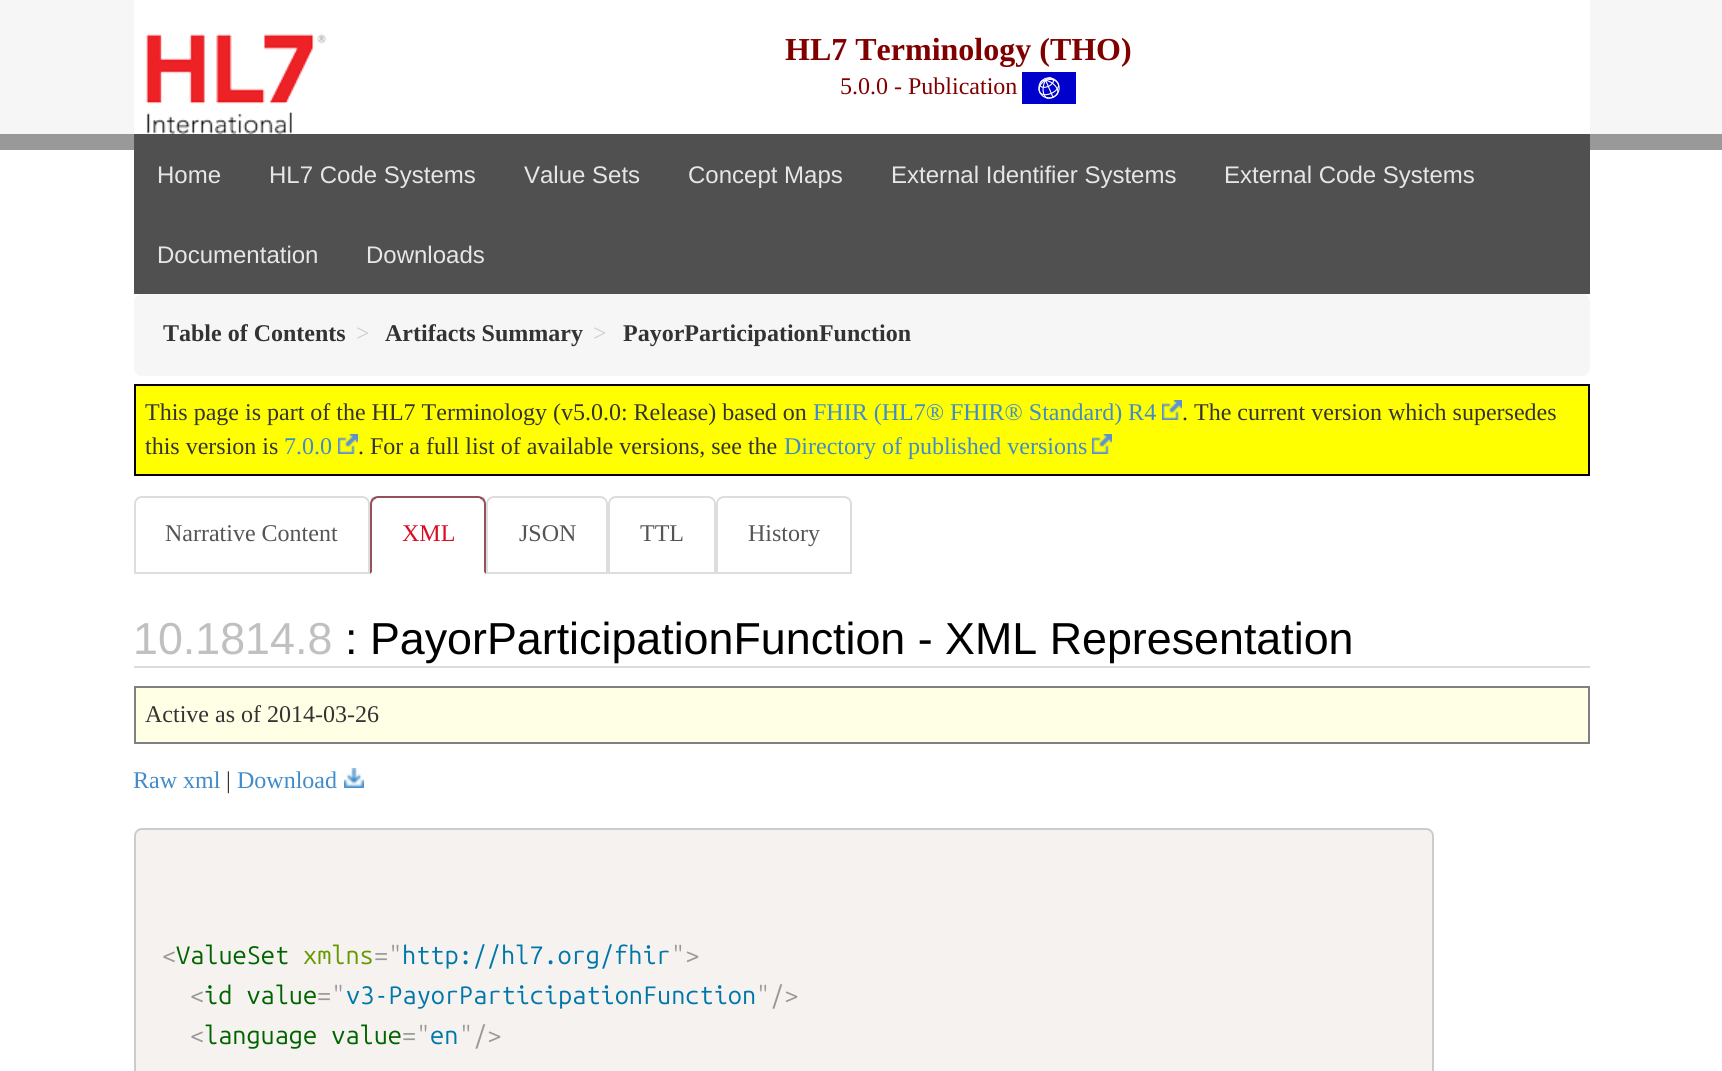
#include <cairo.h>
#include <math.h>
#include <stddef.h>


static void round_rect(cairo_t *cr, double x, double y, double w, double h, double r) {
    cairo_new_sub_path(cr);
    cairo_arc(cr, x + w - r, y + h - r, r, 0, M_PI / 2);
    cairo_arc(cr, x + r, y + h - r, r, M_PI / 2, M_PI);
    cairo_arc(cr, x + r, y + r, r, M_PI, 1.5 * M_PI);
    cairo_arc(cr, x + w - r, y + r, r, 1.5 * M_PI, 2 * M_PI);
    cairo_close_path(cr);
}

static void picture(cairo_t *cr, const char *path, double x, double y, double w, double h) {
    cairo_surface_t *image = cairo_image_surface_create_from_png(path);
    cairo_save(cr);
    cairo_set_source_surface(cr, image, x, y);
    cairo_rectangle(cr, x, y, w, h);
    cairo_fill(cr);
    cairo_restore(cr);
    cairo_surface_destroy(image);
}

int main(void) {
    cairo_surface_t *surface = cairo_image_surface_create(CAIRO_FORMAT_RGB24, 1722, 1071);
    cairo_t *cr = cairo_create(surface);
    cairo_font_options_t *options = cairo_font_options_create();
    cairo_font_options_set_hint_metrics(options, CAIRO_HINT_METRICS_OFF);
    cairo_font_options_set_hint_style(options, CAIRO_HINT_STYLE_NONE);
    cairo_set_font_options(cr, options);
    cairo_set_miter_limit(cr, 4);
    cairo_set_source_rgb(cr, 1, 1, 1);
    cairo_paint(cr);
    cairo_set_source_rgb(cr, 0.961, 0.961, 0.961);
    cairo_rectangle(cr, 0, 0, 1722, 134);
    cairo_fill(cr);
    cairo_set_source_rgb(cr, 1, 1, 1);
    cairo_rectangle(cr, 134, 0, 1456, 134);
    cairo_fill(cr);
    picture(cr, "img1.png", 146, 34, 180, 100);
    cairo_select_font_face(cr, "Liberation Serif", CAIRO_FONT_SLANT_NORMAL, CAIRO_FONT_WEIGHT_BOLD);
    cairo_set_font_size(cr, 32);
    cairo_set_source_rgb(cr, 0.502, 0, 0);
    cairo_move_to(cr, 785, 60);
    cairo_show_text(cr, "HL7 Terminology (THO)");
    cairo_select_font_face(cr, "Liberation Serif", CAIRO_FONT_SLANT_NORMAL, CAIRO_FONT_WEIGHT_NORMAL);
    cairo_set_font_size(cr, 24);
    cairo_move_to(cr, 840, 94);
    cairo_show_text(cr, "5.0.0 - Publication");
    picture(cr, "img2.png", 1022, 72, 54, 32);
    cairo_set_source_rgb(cr, 0.6, 0.6, 0.6);
    cairo_rectangle(cr, 0, 134, 1722, 16);
    cairo_fill(cr);
    cairo_set_source_rgb(cr, 0.314, 0.314, 0.314);
    cairo_rectangle(cr, 134, 134, 1456, 160);
    cairo_fill(cr);
    cairo_select_font_face(cr, "Liberation Sans", CAIRO_FONT_SLANT_NORMAL, CAIRO_FONT_WEIGHT_NORMAL);
    cairo_set_source_rgb(cr, 0.902, 0.902, 0.902);
    cairo_move_to(cr, 157, 183);
    cairo_show_text(cr, "Home");
    cairo_move_to(cr, 269, 183);
    cairo_show_text(cr, "HL7 Code Systems");
    cairo_move_to(cr, 524, 183);
    cairo_show_text(cr, "Value Sets");
    cairo_move_to(cr, 688, 183);
    cairo_show_text(cr, "Concept Maps");
    cairo_move_to(cr, 891, 183);
    cairo_show_text(cr, "External Identifier Systems");
    cairo_move_to(cr, 1224, 183);
    cairo_show_text(cr, "External Code Systems");
    cairo_move_to(cr, 157, 263);
    cairo_show_text(cr, "Documentation");
    cairo_move_to(cr, 366, 263);
    cairo_show_text(cr, "Downloads");
    cairo_set_source_rgb(cr, 0.961, 0.961, 0.961);
    round_rect(cr, 134, 294, 1456, 82, 8);
    cairo_fill(cr);
    cairo_select_font_face(cr, "Liberation Serif", CAIRO_FONT_SLANT_NORMAL, CAIRO_FONT_WEIGHT_BOLD);
    cairo_set_source_rgb(cr, 0.2, 0.2, 0.2);
    cairo_move_to(cr, 163, 341);
    cairo_show_text(cr, "Table of Contents");
    cairo_select_font_face(cr, "Liberation Serif", CAIRO_FONT_SLANT_NORMAL, CAIRO_FONT_WEIGHT_NORMAL);
    cairo_set_source_rgb(cr, 0.8, 0.8, 0.8);
    cairo_move_to(cr, 356, 341);
    cairo_show_text(cr, ">");
    cairo_select_font_face(cr, "Liberation Serif", CAIRO_FONT_SLANT_NORMAL, CAIRO_FONT_WEIGHT_BOLD);
    cairo_set_source_rgb(cr, 0.2, 0.2, 0.2);
    cairo_move_to(cr, 385, 341);
    cairo_show_text(cr, "Artifacts Summary");
    cairo_select_font_face(cr, "Liberation Serif", CAIRO_FONT_SLANT_NORMAL, CAIRO_FONT_WEIGHT_NORMAL);
    cairo_set_source_rgb(cr, 0.8, 0.8, 0.8);
    cairo_move_to(cr, 593, 341);
    cairo_show_text(cr, ">");
    cairo_select_font_face(cr, "Liberation Serif", CAIRO_FONT_SLANT_NORMAL, CAIRO_FONT_WEIGHT_BOLD);
    cairo_set_source_rgb(cr, 0.2, 0.2, 0.2);
    cairo_move_to(cr, 623, 341);
    cairo_show_text(cr, "PayorParticipationFunction");
    cairo_set_source_rgb(cr, 1, 1, 0);
    cairo_rectangle(cr, 135, 385, 1454, 90);
    cairo_fill_preserve(cr);
    cairo_set_source_rgb(cr, 0.039, 0, 0.031);
    cairo_stroke(cr);
    cairo_select_font_face(cr, "Liberation Serif", CAIRO_FONT_SLANT_NORMAL, CAIRO_FONT_WEIGHT_NORMAL);
    cairo_set_source_rgb(cr, 0.2, 0.2, 0.2);
    cairo_move_to(cr, 145, 420);
    cairo_show_text(cr, "This page is part of the HL7 Terminology (v5.0.0: Release) based on");
    cairo_set_source_rgb(cr, 0.259, 0.545, 0.792);
    cairo_move_to(cr, 813, 420);
    cairo_show_text(cr, "FHIR (HL7® FHIR® Standard) R4");
    picture(cr, "img3.png", 1162, 400, 20, 20);
    cairo_set_source_rgb(cr, 0.2, 0.2, 0.2);
    cairo_move_to(cr, 1182, 420);
    cairo_show_text(cr, ". The current version which supersedes");
    cairo_move_to(cr, 145, 454);
    cairo_show_text(cr, "this version is");
    cairo_set_source_rgb(cr, 0.259, 0.545, 0.792);
    cairo_move_to(cr, 284, 454);
    cairo_show_text(cr, "7.0.0");
    picture(cr, "img3.png", 338, 434, 20, 20);
    cairo_set_source_rgb(cr, 0.2, 0.2, 0.2);
    cairo_move_to(cr, 358, 454);
    cairo_show_text(cr, ". For a full list of available versions, see the");
    cairo_set_source_rgb(cr, 0.259, 0.545, 0.792);
    cairo_move_to(cr, 784, 454);
    cairo_show_text(cr, "Directory of published versions");
    picture(cr, "img3.png", 1092, 434, 20, 20);
    cairo_new_path(cr);
    cairo_move_to(cr, 142, 497);
    cairo_line_to(cr, 362, 497);
    cairo_curve_to(cr, 366, 497, 369, 500, 369, 504);
    cairo_line_to(cr, 369, 573);
    cairo_line_to(cr, 135, 573);
    cairo_line_to(cr, 135, 504);
    cairo_curve_to(cr, 135, 500, 138, 497, 142, 497);
    cairo_close_path(cr);
    cairo_set_source_rgb(cr, 0.867, 0.867, 0.867);
    cairo_stroke(cr);
    cairo_set_source_rgb(cr, 0.333, 0.333, 0.333);
    cairo_move_to(cr, 165, 541);
    cairo_show_text(cr, "Narrative Content");
    cairo_set_source_rgb(cr, 0.584, 0.318, 0.349);
    cairo_new_path(cr);
    cairo_move_to(cr, 378, 496);
    cairo_curve_to(cr, 376, 496, 374, 497, 372, 498);
    cairo_line_to(cr, 374, 500);
    cairo_line_to(cr, 377, 498);
    cairo_line_to(cr, 479, 498);
    cairo_line_to(cr, 482, 500);
    cairo_line_to(cr, 484, 498);
    cairo_curve_to(cr, 482, 497, 480, 496, 478, 496);
    cairo_close_path(cr);
    cairo_fill(cr);
    cairo_new_path(cr);
    cairo_move_to(cr, 486, 574);
    cairo_line_to(cr, 486, 504);
    cairo_curve_to(cr, 486, 502, 485, 500, 484, 498);
    cairo_line_to(cr, 482, 500);
    cairo_curve_to(cr, 483, 501, 484, 502, 484, 504);
    cairo_line_to(cr, 484, 572);
    cairo_close_path(cr);
    cairo_fill(cr);
    cairo_new_path(cr);
    cairo_move_to(cr, 370, 574);
    cairo_line_to(cr, 372, 572);
    cairo_line_to(cr, 372, 504);
    cairo_curve_to(cr, 372, 502, 373, 501, 374, 500);
    cairo_line_to(cr, 372, 498);
    cairo_curve_to(cr, 371, 500, 370, 502, 370, 504);
    cairo_close_path(cr);
    cairo_fill(cr);
    cairo_set_source_rgb(cr, 0.855, 0.047, 0.137);
    cairo_move_to(cr, 402, 541);
    cairo_show_text(cr, "XML");
    cairo_new_path(cr);
    cairo_move_to(cr, 494, 497);
    cairo_line_to(cr, 600, 497);
    cairo_curve_to(cr, 604, 497, 607, 500, 607, 504);
    cairo_line_to(cr, 607, 573);
    cairo_line_to(cr, 487, 573);
    cairo_line_to(cr, 487, 504);
    cairo_curve_to(cr, 487, 500, 490, 497, 494, 497);
    cairo_close_path(cr);
    cairo_set_source_rgb(cr, 0.867, 0.867, 0.867);
    cairo_stroke(cr);
    cairo_set_source_rgb(cr, 0.333, 0.333, 0.333);
    cairo_move_to(cr, 519, 541);
    cairo_show_text(cr, "JSON");
    cairo_new_path(cr);
    cairo_move_to(cr, 616, 497);
    cairo_line_to(cr, 708, 497);
    cairo_curve_to(cr, 712, 497, 715, 500, 715, 504);
    cairo_line_to(cr, 715, 573);
    cairo_line_to(cr, 609, 573);
    cairo_line_to(cr, 609, 504);
    cairo_curve_to(cr, 609, 500, 612, 497, 616, 497);
    cairo_close_path(cr);
    cairo_set_source_rgb(cr, 0.867, 0.867, 0.867);
    cairo_stroke(cr);
    cairo_set_source_rgb(cr, 0.333, 0.333, 0.333);
    cairo_move_to(cr, 640, 541);
    cairo_show_text(cr, "TTL");
    cairo_new_path(cr);
    cairo_move_to(cr, 724, 497);
    cairo_line_to(cr, 844, 497);
    cairo_curve_to(cr, 848, 497, 851, 500, 851, 504);
    cairo_line_to(cr, 851, 573);
    cairo_line_to(cr, 717, 573);
    cairo_line_to(cr, 717, 504);
    cairo_curve_to(cr, 717, 500, 720, 497, 724, 497);
    cairo_close_path(cr);
    cairo_set_source_rgb(cr, 0.867, 0.867, 0.867);
    cairo_stroke(cr);
    cairo_set_source_rgb(cr, 0.333, 0.333, 0.333);
    cairo_move_to(cr, 748, 541);
    cairo_show_text(cr, "History");
    cairo_set_source_rgb(cr, 0.863, 0.863, 0.863);
    cairo_rectangle(cr, 134, 666, 1456, 2);
    cairo_fill(cr);
    cairo_select_font_face(cr, "Liberation Sans", CAIRO_FONT_SLANT_NORMAL, CAIRO_FONT_WEIGHT_NORMAL);
    cairo_set_font_size(cr, 44.8);
    cairo_set_source_rgb(cr, 0.753, 0.753, 0.753);
    cairo_move_to(cr, 133, 654);
    cairo_show_text(cr, "10.1814.8");
    cairo_set_source_rgb(cr, 0, 0, 0);
    cairo_move_to(cr, 345, 654);
    cairo_show_text(cr, ": PayorParticipationFunction - XML Representation");
    cairo_set_source_rgb(cr, 1, 1, 0.902);
    cairo_rectangle(cr, 136, 688, 1452, 54);
    cairo_fill(cr);
    cairo_set_source_rgb(cr, 0.502, 0.502, 0.502);
    cairo_rectangle(cr, 134, 686, 1456, 2);
    cairo_fill(cr);
    cairo_rectangle(cr, 1588, 686, 2, 58);
    cairo_fill(cr);
    cairo_rectangle(cr, 134, 742, 1456, 2);
    cairo_fill(cr);
    cairo_rectangle(cr, 134, 686, 2, 58);
    cairo_fill(cr);
    cairo_select_font_face(cr, "Liberation Serif", CAIRO_FONT_SLANT_NORMAL, CAIRO_FONT_WEIGHT_NORMAL);
    cairo_set_font_size(cr, 24);
    cairo_set_source_rgb(cr, 0.2, 0.2, 0.2);
    cairo_move_to(cr, 145, 722);
    cairo_show_text(cr, "Active as of 2014-03-26");
    cairo_set_source_rgb(cr, 0.259, 0.545, 0.792);
    cairo_move_to(cr, 133, 788);
    cairo_show_text(cr, "Raw xml");
    cairo_set_source_rgb(cr, 0.2, 0.2, 0.2);
    cairo_move_to(cr, 226, 788);
    cairo_show_text(cr, "|");
    cairo_set_source_rgb(cr, 0.259, 0.545, 0.792);
    cairo_move_to(cr, 237, 788);
    cairo_show_text(cr, "Download");
    picture(cr, "img4.png", 344, 768, 20, 20);
    cairo_set_source_rgb(cr, 0.961, 0.949, 0.941);
    round_rect(cr, 135, 829, 1298, 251, 7);
    cairo_fill_preserve(cr);
    cairo_set_source_rgb(cr, 0.8, 0.8, 0.8);
    cairo_stroke(cr);
    cairo_select_font_face(cr, "Ubuntu Mono", CAIRO_FONT_SLANT_NORMAL, CAIRO_FONT_WEIGHT_NORMAL);
    cairo_set_font_size(cr, 25.25);
    cairo_set_source_rgb(cr, 0.6, 0.6, 0.6);
    cairo_move_to(cr, 162, 964);
    cairo_show_text(cr, "<");
    cairo_set_source_rgb(cr, 0, 0.392, 0);
    cairo_move_to(cr, 176, 964);
    cairo_show_text(cr, "ValueSet");
    cairo_set_source_rgb(cr, 0.4, 0.6, 0);
    cairo_move_to(cr, 303, 964);
    cairo_show_text(cr, "xmlns");
    cairo_set_source_rgb(cr, 0.6, 0.6, 0.6);
    cairo_move_to(cr, 374, 964);
    cairo_show_text(cr, "=\"");
    cairo_set_source_rgb(cr, 0, 0.467, 0.667);
    cairo_move_to(cr, 402, 964);
    cairo_show_text(cr, "http://hl7.org/fhir");
    cairo_set_source_rgb(cr, 0.6, 0.6, 0.6);
    cairo_move_to(cr, 671, 964);
    cairo_show_text(cr, "\">");
    cairo_move_to(cr, 190, 1004);
    cairo_show_text(cr, "<");
    cairo_set_source_rgb(cr, 0, 0.392, 0);
    cairo_move_to(cr, 204, 1004);
    cairo_show_text(cr, "id value");
    cairo_set_source_rgb(cr, 0.6, 0.6, 0.6);
    cairo_move_to(cr, 317, 1004);
    cairo_show_text(cr, "=\"");
    cairo_set_source_rgb(cr, 0, 0.467, 0.667);
    cairo_move_to(cr, 346, 1004);
    cairo_show_text(cr, "v3-PayorParticipationFunction");
    cairo_set_source_rgb(cr, 0.6, 0.6, 0.6);
    cairo_move_to(cr, 756, 1004);
    cairo_show_text(cr, "\"/>");
    cairo_move_to(cr, 190, 1044);
    cairo_show_text(cr, "<");
    cairo_set_source_rgb(cr, 0, 0.392, 0);
    cairo_move_to(cr, 204, 1044);
    cairo_show_text(cr, "language value");
    cairo_set_source_rgb(cr, 0.6, 0.6, 0.6);
    cairo_move_to(cr, 402, 1044);
    cairo_show_text(cr, "=\"");
    cairo_set_source_rgb(cr, 0, 0.467, 0.667);
    cairo_move_to(cr, 430, 1044);
    cairo_show_text(cr, "en");
    cairo_set_source_rgb(cr, 0.6, 0.6, 0.6);
    cairo_move_to(cr, 459, 1044);
    cairo_show_text(cr, "\"/>");
    cairo_surface_write_to_png(surface, "page.png");
    cairo_font_options_destroy(options);
    cairo_destroy(cr);
    cairo_surface_destroy(surface);
    return 0;
}
